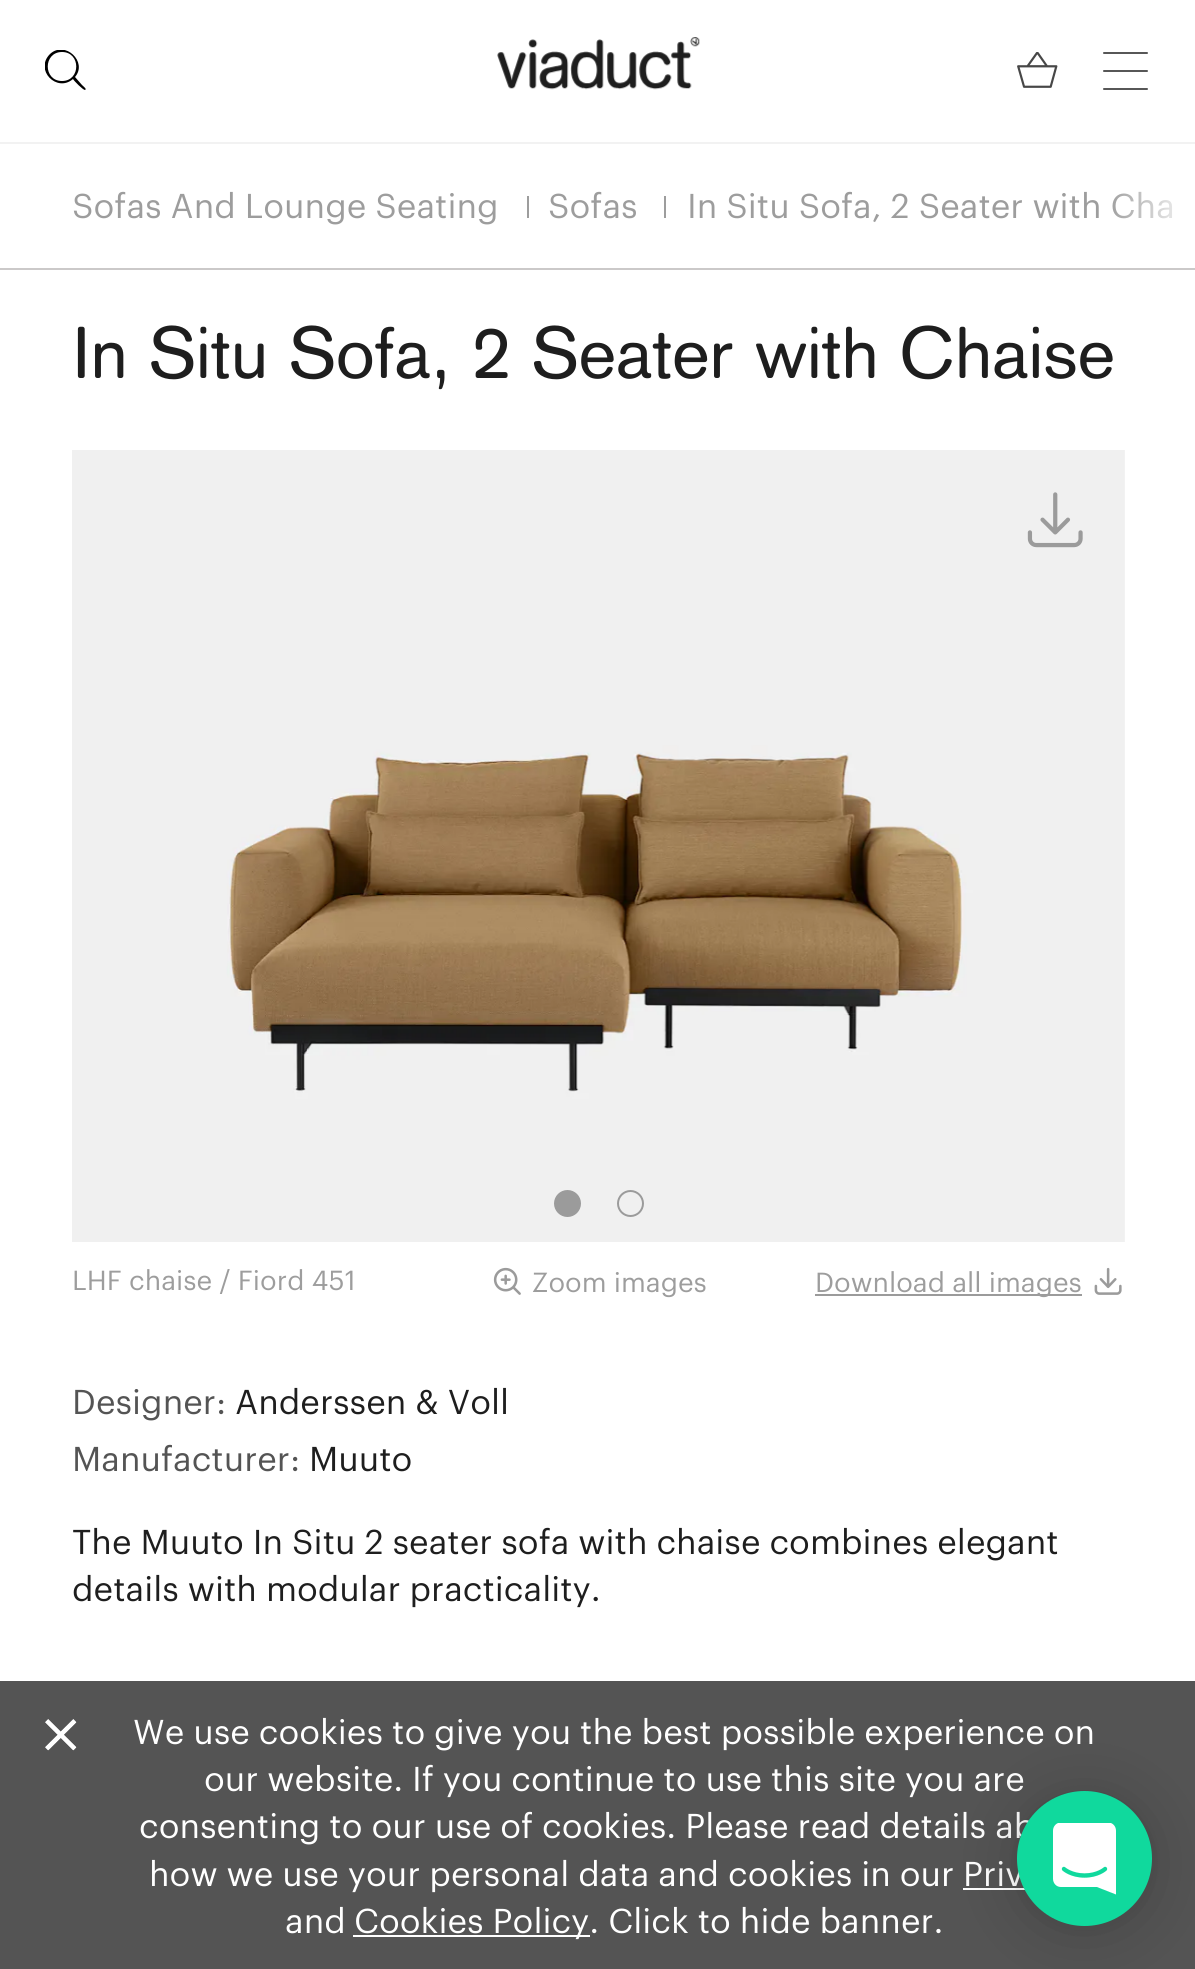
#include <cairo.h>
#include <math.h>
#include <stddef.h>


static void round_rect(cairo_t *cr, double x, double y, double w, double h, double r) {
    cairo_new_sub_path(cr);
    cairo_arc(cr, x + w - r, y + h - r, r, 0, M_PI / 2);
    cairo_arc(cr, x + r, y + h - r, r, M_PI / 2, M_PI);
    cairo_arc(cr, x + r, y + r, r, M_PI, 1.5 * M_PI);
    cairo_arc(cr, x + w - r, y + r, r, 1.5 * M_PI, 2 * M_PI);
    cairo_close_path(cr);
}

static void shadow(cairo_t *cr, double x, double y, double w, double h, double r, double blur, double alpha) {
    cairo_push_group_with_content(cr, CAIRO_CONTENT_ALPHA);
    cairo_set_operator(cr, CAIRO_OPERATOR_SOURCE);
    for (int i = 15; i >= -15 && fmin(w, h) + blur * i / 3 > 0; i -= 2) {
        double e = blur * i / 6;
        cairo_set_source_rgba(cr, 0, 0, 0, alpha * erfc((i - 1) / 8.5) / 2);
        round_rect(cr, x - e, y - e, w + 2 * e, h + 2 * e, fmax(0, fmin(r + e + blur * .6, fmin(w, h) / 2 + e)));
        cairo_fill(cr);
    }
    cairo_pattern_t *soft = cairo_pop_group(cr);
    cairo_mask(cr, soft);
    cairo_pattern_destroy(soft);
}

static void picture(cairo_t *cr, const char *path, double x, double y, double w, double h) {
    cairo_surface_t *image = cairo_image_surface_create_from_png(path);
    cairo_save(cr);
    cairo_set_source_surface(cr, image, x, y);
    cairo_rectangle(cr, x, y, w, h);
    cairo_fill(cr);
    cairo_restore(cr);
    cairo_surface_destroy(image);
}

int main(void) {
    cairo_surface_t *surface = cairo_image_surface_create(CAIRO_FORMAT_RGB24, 1195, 1969);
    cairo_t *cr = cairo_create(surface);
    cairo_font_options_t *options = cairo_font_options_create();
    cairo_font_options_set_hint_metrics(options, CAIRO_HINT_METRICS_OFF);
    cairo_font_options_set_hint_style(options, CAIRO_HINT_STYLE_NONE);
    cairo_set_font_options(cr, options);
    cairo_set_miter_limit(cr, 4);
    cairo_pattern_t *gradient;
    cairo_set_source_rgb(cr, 1, 1, 1);
    cairo_paint(cr);
    cairo_set_source_rgb(cr, 0.949, 0.949, 0.949);
    cairo_rectangle(cr, 0, 142, 1195, 2);
    cairo_fill(cr);
    cairo_save(cr);
    cairo_rectangle(cr, 45, 50, 41, 40);
    cairo_clip(cr);
    cairo_set_source_rgb(cr, 0, 0, 0);
    cairo_new_path(cr);
    cairo_move_to(cr, 75, 77);
    cairo_curve_to(cr, 88, 62, 65, 40, 50, 54);
    cairo_curve_to(cr, 34, 70, 57, 93, 73, 79);
    cairo_curve_to(cr, 74, 81, 83, 90, 85, 90);
    cairo_curve_to(cr, 87, 89, 84, 87, 82, 85);
    cairo_close_path(cr);
    cairo_move_to(cr, 62, 81);
    cairo_curve_to(cr, 43, 81, 43, 52, 62, 52);
    cairo_curve_to(cr, 81, 52, 81, 81, 62, 81);
    cairo_close_path(cr);
    cairo_fill(cr);
    cairo_restore(cr);
    picture(cr, "img1.png", 497, 37, 203, 53);
    picture(cr, "img2.png", 1017, 52, 41, 36);
    cairo_set_source_rgb(cr, 0.341, 0.341, 0.341);
    round_rect(cr, 1103, 52, 45, 2, 1);
    cairo_fill(cr);
    round_rect(cr, 1103, 70, 45, 2, 1);
    cairo_fill(cr);
    round_rect(cr, 1103, 88, 45, 2, 1);
    cairo_fill(cr);
    cairo_set_source_rgb(cr, 0.796, 0.788, 0.788);
    cairo_rectangle(cr, 0, 268, 1195, 2);
    cairo_fill(cr);
    cairo_select_font_face(cr, "Graphik", CAIRO_FONT_SLANT_NORMAL, CAIRO_FONT_WEIGHT_NORMAL);
    cairo_set_font_size(cr, 33.75);
    cairo_set_source_rgb(cr, 0.616, 0.616, 0.616);
    cairo_move_to(cr, 72, 218);
    cairo_show_text(cr, "Sofas And Lounge Seating");
    cairo_rectangle(cr, 527, 196, 2, 22);
    cairo_fill(cr);
    cairo_move_to(cr, 548, 218);
    cairo_show_text(cr, "Sofas");
    cairo_rectangle(cr, 664, 196, 2, 22);
    cairo_fill(cr);
    cairo_move_to(cr, 687, 218);
    cairo_show_text(cr, "In Situ Sofa, 2 Seater with Cha");
    gradient = cairo_pattern_create_linear(1107, 212, 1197, 212);
    cairo_pattern_add_color_stop_rgba(gradient, 0, 1, 1, 1, 0);
    cairo_pattern_add_color_stop_rgba(gradient, 1, 1, 1, 1, 1);
    cairo_set_source(cr, gradient);
    cairo_pattern_destroy(gradient);
    cairo_rectangle(cr, 1113, 192, 60, 27);
    cairo_fill(cr);
    cairo_select_font_face(cr, "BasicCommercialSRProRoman", CAIRO_FONT_SLANT_NORMAL, CAIRO_FONT_WEIGHT_NORMAL);
    cairo_set_font_size(cr, 72);
    cairo_set_source_rgb(cr, 0.118, 0.118, 0.118);
    cairo_move_to(cr, 72, 378);
    cairo_show_text(cr, "In Situ Sofa, 2 Seater with Chaise");
    picture(cr, "img3.png", 72, 450, 1053, 792);
    cairo_set_source_rgb(cr, 0.608, 0.608, 0.608);
    cairo_arc(cr, 567.5, 1203.5, 12.5, 0, 2 * M_PI);
    cairo_fill_preserve(cr);
    cairo_stroke(cr);
    cairo_arc(cr, 630.5, 1203.5, 12.5, 0, 2 * M_PI);
    cairo_stroke(cr);
    picture(cr, "img4.png", 1027, 492, 56, 56);
    cairo_select_font_face(cr, "Graphik", CAIRO_FONT_SLANT_NORMAL, CAIRO_FONT_WEIGHT_NORMAL);
    cairo_set_font_size(cr, 27);
    cairo_set_source_rgb(cr, 0.616, 0.616, 0.616);
    cairo_move_to(cr, 72, 1290);
    cairo_show_text(cr, "LHF chaise / Fiord 451");
    picture(cr, "img5.png", 493, 1267, 28, 28);
    cairo_move_to(cr, 532, 1292);
    cairo_show_text(cr, "Zoom images");
    cairo_set_source_rgb(cr, 0.608, 0.608, 0.608);
    cairo_rectangle(cr, 815, 1294, 267, 2);
    cairo_fill(cr);
    cairo_set_source_rgb(cr, 0.616, 0.616, 0.616);
    cairo_move_to(cr, 815, 1292);
    cairo_show_text(cr, "Download all images");
    picture(cr, "img6.png", 1094, 1267, 28, 28);
    cairo_set_font_size(cr, 33.75);
    cairo_set_source_rgb(cr, 0.329, 0.329, 0.329);
    cairo_move_to(cr, 72, 1414);
    cairo_show_text(cr, "Designer:");
    cairo_set_source_rgb(cr, 0.118, 0.118, 0.118);
    cairo_move_to(cr, 235, 1414);
    cairo_show_text(cr, "Anderssen & Voll");
    cairo_set_source_rgb(cr, 0.329, 0.329, 0.329);
    cairo_move_to(cr, 72, 1471);
    cairo_show_text(cr, "Manufacturer:");
    cairo_set_source_rgb(cr, 0.118, 0.118, 0.118);
    cairo_move_to(cr, 309, 1471);
    cairo_show_text(cr, "Muuto");
    cairo_move_to(cr, 72, 1554);
    cairo_show_text(cr, "The Muuto In Situ 2 seater sofa with chaise combines elegant");
    cairo_move_to(cr, 72, 1601);
    cairo_show_text(cr, "details with modular practicality.");
    cairo_set_source_rgb(cr, 0.329, 0.329, 0.329);
    cairo_rectangle(cr, 0, 1681, 1195, 288);
    cairo_fill(cr);
    picture(cr, "img7.png", 45, 1719, 32, 32);
    cairo_set_source_rgb(cr, 1, 1, 1);
    cairo_move_to(cr, 133, 1744);
    cairo_show_text(cr, "We use cookies to give you the best possible experience on");
    cairo_move_to(cr, 204, 1791);
    cairo_show_text(cr, "our website. If you continue to use this site you are");
    cairo_move_to(cr, 139, 1838);
    cairo_show_text(cr, "consenting to our use of cookies. Please read details ab");
    cairo_move_to(cr, 149, 1886);
    cairo_show_text(cr, "how we use your personal data and cookies in our Priv");
    cairo_rectangle(cr, 963, 1888, 62, 2);
    cairo_fill(cr);
    cairo_move_to(cr, 285, 1933);
    cairo_show_text(cr, "and");
    cairo_rectangle(cr, 353, 1935, 237, 2);
    cairo_fill(cr);
    cairo_move_to(cr, 354, 1933);
    cairo_show_text(cr, "Cookies Policy. Click to hide banner.");
    cairo_set_source_rgb(cr, 0, 0, 0);
    shadow(cr, 1017, 1796, 135, 135, 67.5, 36, 0.16);
    shadow(cr, 1017, 1793, 135, 135, 67.5, 7, 0.06);
    cairo_set_source_rgb(cr, 0.063, 0.851, 0.616);
    cairo_arc(cr, 1084.5, 1858.5, 67.5, 0, 2 * M_PI);
    cairo_fill(cr);
    picture(cr, "img8.png", 1053, 1823, 63, 72);
    cairo_surface_write_to_png(surface, "page.png");
    cairo_font_options_destroy(options);
    cairo_destroy(cr);
    cairo_surface_destroy(surface);
    return 0;
}
